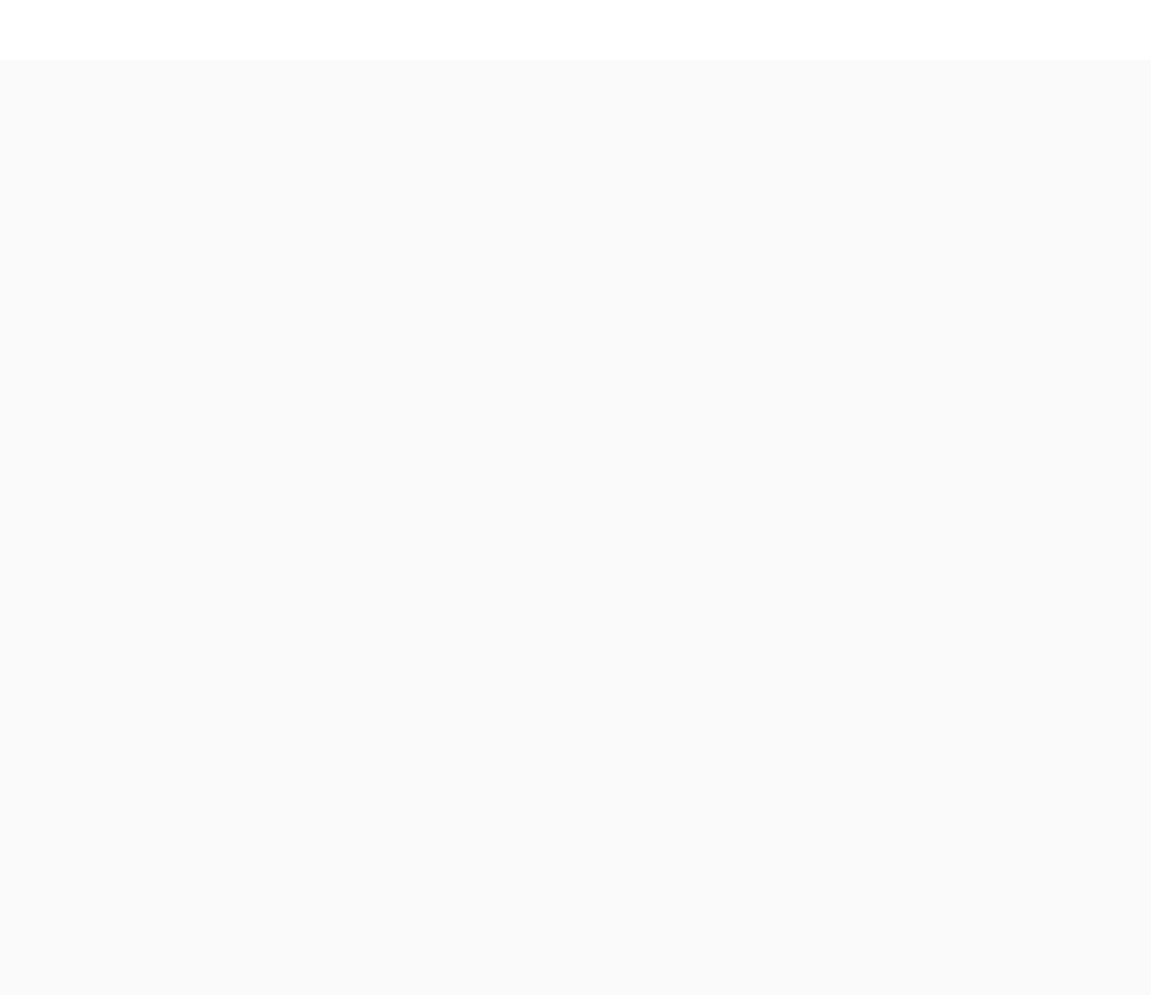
#include <cairo.h>
#include <math.h>
#include <stddef.h>


int main(void) {
    cairo_surface_t *surface = cairo_image_surface_create(CAIRO_FORMAT_RGB24, 1151, 995);
    cairo_t *cr = cairo_create(surface);
    cairo_font_options_t *options = cairo_font_options_create();
    cairo_font_options_set_hint_metrics(options, CAIRO_HINT_METRICS_OFF);
    cairo_font_options_set_hint_style(options, CAIRO_HINT_STYLE_NONE);
    cairo_set_font_options(cr, options);
    cairo_set_miter_limit(cr, 4);
    cairo_set_source_rgb(cr, 0.98, 0.98, 0.98);
    cairo_paint(cr);
    cairo_set_source_rgb(cr, 1, 1, 1);
    cairo_rectangle(cr, 0, 0, 1151, 60);
    cairo_fill(cr);
    cairo_surface_write_to_png(surface, "page.png");
    cairo_font_options_destroy(options);
    cairo_destroy(cr);
    cairo_surface_destroy(surface);
    return 0;
}
